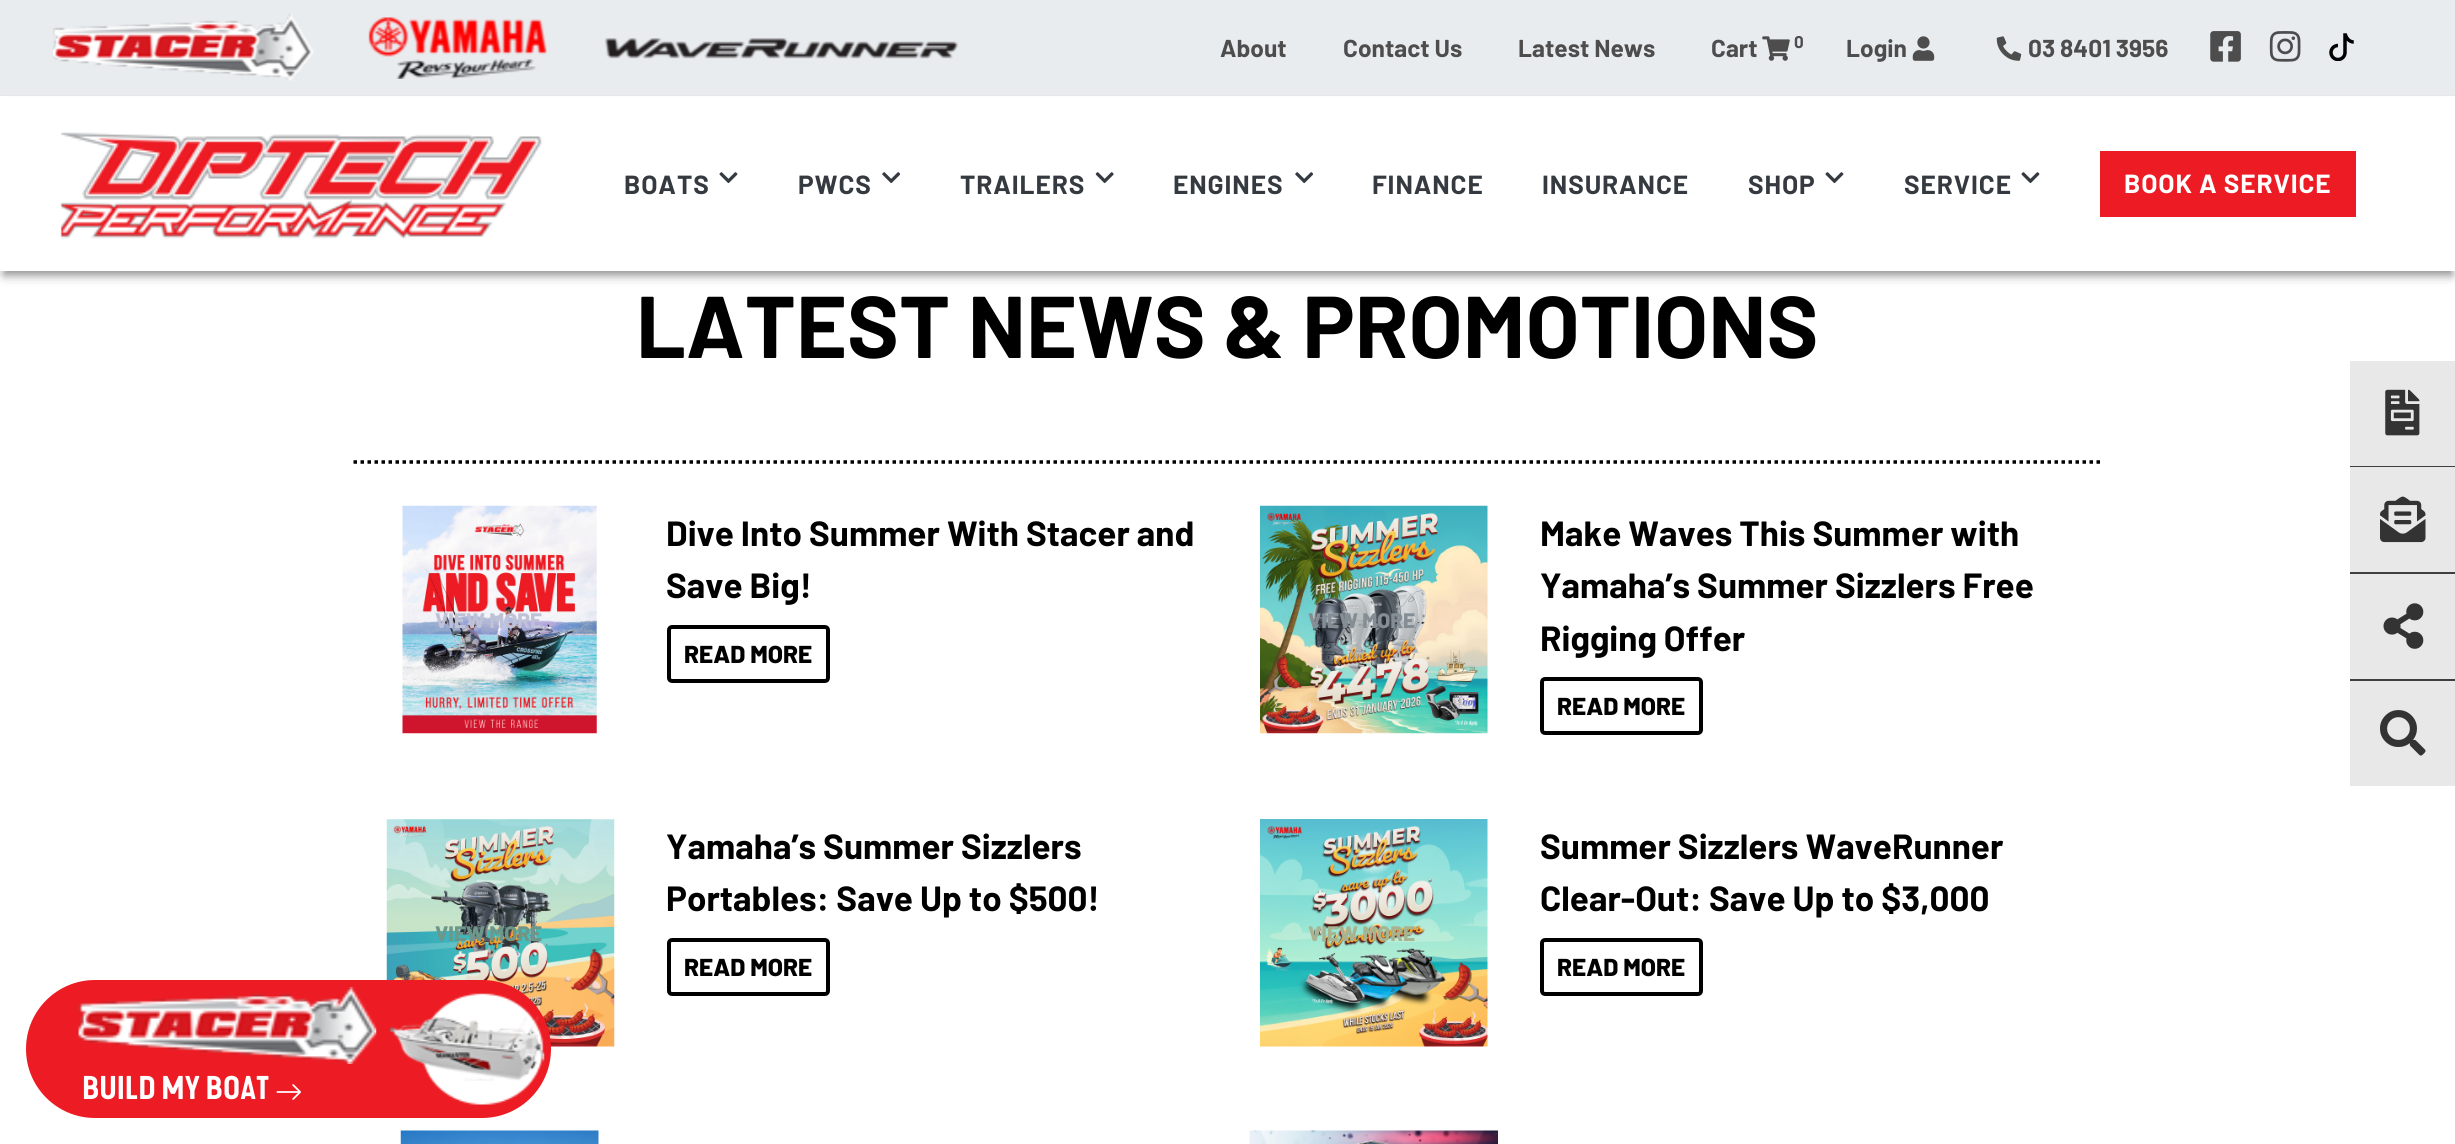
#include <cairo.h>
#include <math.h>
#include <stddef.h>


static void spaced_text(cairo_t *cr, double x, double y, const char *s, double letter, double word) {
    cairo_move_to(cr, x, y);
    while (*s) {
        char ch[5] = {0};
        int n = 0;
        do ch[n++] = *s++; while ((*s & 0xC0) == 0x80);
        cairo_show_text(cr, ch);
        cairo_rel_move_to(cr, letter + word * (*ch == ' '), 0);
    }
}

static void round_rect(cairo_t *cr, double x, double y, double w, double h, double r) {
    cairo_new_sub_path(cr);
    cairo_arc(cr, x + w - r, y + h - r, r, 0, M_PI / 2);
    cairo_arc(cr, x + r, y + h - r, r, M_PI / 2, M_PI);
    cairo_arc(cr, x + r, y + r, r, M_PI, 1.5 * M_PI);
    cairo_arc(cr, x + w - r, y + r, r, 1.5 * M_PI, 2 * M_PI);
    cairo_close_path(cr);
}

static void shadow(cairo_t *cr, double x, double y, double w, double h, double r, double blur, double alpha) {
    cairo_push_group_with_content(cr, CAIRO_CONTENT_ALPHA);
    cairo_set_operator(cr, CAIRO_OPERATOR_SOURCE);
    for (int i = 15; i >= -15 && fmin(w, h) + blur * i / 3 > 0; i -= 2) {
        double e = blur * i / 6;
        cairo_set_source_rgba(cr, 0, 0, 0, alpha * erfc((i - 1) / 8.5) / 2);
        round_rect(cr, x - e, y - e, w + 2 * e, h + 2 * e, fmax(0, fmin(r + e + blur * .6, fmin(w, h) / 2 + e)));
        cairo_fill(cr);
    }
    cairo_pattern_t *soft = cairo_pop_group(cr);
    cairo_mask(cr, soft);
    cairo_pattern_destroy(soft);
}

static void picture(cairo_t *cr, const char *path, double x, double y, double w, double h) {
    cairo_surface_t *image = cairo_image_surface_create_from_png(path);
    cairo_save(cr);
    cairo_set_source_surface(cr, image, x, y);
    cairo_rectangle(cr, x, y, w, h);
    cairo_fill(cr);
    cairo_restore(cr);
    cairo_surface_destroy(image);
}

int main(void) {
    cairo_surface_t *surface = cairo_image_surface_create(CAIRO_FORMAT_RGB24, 2455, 1144);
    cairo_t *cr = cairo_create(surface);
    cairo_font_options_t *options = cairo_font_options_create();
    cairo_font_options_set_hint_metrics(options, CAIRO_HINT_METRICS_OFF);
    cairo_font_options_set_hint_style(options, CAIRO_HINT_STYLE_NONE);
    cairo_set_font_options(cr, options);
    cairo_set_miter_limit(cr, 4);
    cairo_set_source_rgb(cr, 1, 1, 1);
    cairo_paint(cr);
    cairo_set_source_rgb(cr, 0.914, 0.925, 0.937);
    cairo_rectangle(cr, 0, 0, 2455, 95);
    cairo_fill(cr);
    cairo_set_source_rgb(cr, 0.91, 0.91, 0.91);
    cairo_rectangle(cr, 0, 95, 2455, 1);
    cairo_fill(cr);
    picture(cr, "img1.png", 53, 14, 261, 67);
    picture(cr, "img2.png", 368, 17, 179, 62);
    picture(cr, "img3.png", 604, 38, 355, 21);
    cairo_select_font_face(cr, "Barlow", CAIRO_FONT_SLANT_NORMAL, CAIRO_FONT_WEIGHT_BOLD);
    cairo_set_font_size(cr, 24.5);
    cairo_set_source_rgb(cr, 0.302, 0.302, 0.302);
    cairo_move_to(cr, 1220, 57);
    cairo_show_text(cr, "About");
    cairo_move_to(cr, 1343, 57);
    cairo_show_text(cr, "Contact Us");
    cairo_move_to(cr, 1518, 57);
    cairo_show_text(cr, "Latest News");
    cairo_move_to(cr, 1711, 57);
    cairo_show_text(cr, "Cart");
    picture(cr, "img4.png", 1762, 36, 28, 25);
    cairo_set_font_size(cr, 17);
    cairo_move_to(cr, 1794, 48);
    cairo_show_text(cr, "0");
    cairo_set_font_size(cr, 24.5);
    cairo_move_to(cr, 1846, 57);
    cairo_show_text(cr, "Login");
    picture(cr, "img5.png", 1912, 36, 23, 25);
    picture(cr, "img6.png", 1996, 36, 26, 25);
    cairo_move_to(cr, 2028, 57);
    cairo_show_text(cr, "03 8401 3956");
    picture(cr, "img7.png", 2210, 31, 31, 31);
    picture(cr, "img8.png", 2269, 31, 32, 31);
    picture(cr, "img9.png", 2329, 33, 25, 28);
    cairo_set_source_rgb(cr, 0.078, 0.078, 0.078);
    shadow(cr, 4, 107, 2448, 168, 0, 5, 0.5);
    cairo_set_source_rgb(cr, 1, 1, 1);
    cairo_rectangle(cr, 0, 97, 2455, 174);
    cairo_fill(cr);
    picture(cr, "img10.png", 60, 132, 482, 107);
    cairo_set_font_size(cr, 26.25);
    cairo_set_source_rgb(cr, 0.204, 0.227, 0.251);
    spaced_text(cr, 624, 194, "BOATS", 0.9, 0);
    picture(cr, "img11.png", 719, 172, 19, 12);
    spaced_text(cr, 798, 194, "PWCS", 0.9, 0);
    picture(cr, "img12.png", 882, 172, 19, 12);
    spaced_text(cr, 960, 194, "TRAILERS", 0.9, 0);
    picture(cr, "img13.png", 1095, 172, 19, 12);
    spaced_text(cr, 1173, 194, "ENGINES", 0.9, 0);
    picture(cr, "img12.png", 1295, 172, 19, 12);
    spaced_text(cr, 1372, 194, "FINANCE", 0.9, 0);
    spaced_text(cr, 1542, 194, "INSURANCE", 0.9, 0);
    spaced_text(cr, 1748, 194, "SHOP", 0.9, 0);
    picture(cr, "img11.png", 1825, 172, 19, 12);
    spaced_text(cr, 1904, 194, "SERVICE", 0.9, 0);
    picture(cr, "img11.png", 2021, 172, 19, 12);
    cairo_set_source_rgb(cr, 0.929, 0.106, 0.141);
    cairo_rectangle(cr, 2100, 151, 256, 66);
    cairo_fill(cr);
    cairo_set_source_rgb(cr, 1, 1, 1);
    spaced_text(cr, 2124, 193, "BOOK A SERVICE", 0.9, 0);
    cairo_set_font_size(cr, 87.5);
    cairo_set_source_rgb(cr, 0, 0, 0);
    cairo_move_to(cr, 636, 358);
    cairo_show_text(cr, "LATEST NEWS & PROMOTIONS");
    cairo_new_path(cr);
    cairo_move_to(cr, 353.5, 462);
    cairo_line_to(cr, 2102, 462);
    cairo_set_line_width(cr, 3.5);
    cairo_set_dash(cr, (double[]){3.5, 3.5}, 2, 0);
    cairo_stroke(cr);
    picture(cr, "img14.png", 402, 505, 195, 229);
    cairo_select_font_face(cr, "Barlow ExtraBold", CAIRO_FONT_SLANT_NORMAL, CAIRO_FONT_WEIGHT_NORMAL);
    cairo_set_font_size(cr, 21);
    cairo_set_source_rgb(cr, 0.749, 0.757, 0.843);
    cairo_move_to(cr, 435, 628);
    cairo_show_text(cr, "VIEW MORE");
    cairo_select_font_face(cr, "Barlow", CAIRO_FONT_SLANT_NORMAL, CAIRO_FONT_WEIGHT_BOLD);
    cairo_set_font_size(cr, 35);
    cairo_set_source_rgb(cr, 0, 0, 0);
    cairo_move_to(cr, 666, 546);
    cairo_show_text(cr, "Dive Into Summer With Stacer and");
    cairo_move_to(cr, 666, 598);
    cairo_show_text(cr, "Save Big!");
    round_rect(cr, 669, 627, 159, 54, 3);
    cairo_set_line_width(cr, 4);
    cairo_set_dash(cr, NULL, 0, 0);
    cairo_stroke(cr);
    cairo_select_font_face(cr, "Barlow ExtraBold", CAIRO_FONT_SLANT_NORMAL, CAIRO_FONT_WEIGHT_NORMAL);
    cairo_set_font_size(cr, 24.5);
    cairo_move_to(cr, 684, 663);
    cairo_show_text(cr, "READ MORE");
    picture(cr, "img15.png", 1260, 505, 228, 229);
    cairo_set_font_size(cr, 21);
    cairo_set_source_rgb(cr, 0.518, 0.557, 0.58);
    cairo_move_to(cr, 1308, 628);
    cairo_show_text(cr, "VIEW MORE");
    cairo_select_font_face(cr, "Barlow", CAIRO_FONT_SLANT_NORMAL, CAIRO_FONT_WEIGHT_BOLD);
    cairo_set_font_size(cr, 35);
    cairo_set_source_rgb(cr, 0, 0, 0);
    cairo_move_to(cr, 1540, 546);
    cairo_show_text(cr, "Make Waves This Summer with");
    cairo_move_to(cr, 1540, 598);
    cairo_show_text(cr, "Yamaha’s Summer Sizzlers Free");
    cairo_move_to(cr, 1540, 651);
    cairo_show_text(cr, "Rigging Offer");
    round_rect(cr, 1542, 679, 159, 54, 3);
    cairo_stroke(cr);
    cairo_select_font_face(cr, "Barlow ExtraBold", CAIRO_FONT_SLANT_NORMAL, CAIRO_FONT_WEIGHT_NORMAL);
    cairo_set_font_size(cr, 24.5);
    cairo_move_to(cr, 1557, 715);
    cairo_show_text(cr, "READ MORE");
    picture(cr, "img16.png", 386, 819, 229, 228);
    cairo_set_font_size(cr, 21);
    cairo_set_source_rgb(cr, 0.427, 0.592, 0.541);
    cairo_move_to(cr, 435, 941);
    cairo_show_text(cr, "VIEW MORE");
    cairo_select_font_face(cr, "Barlow", CAIRO_FONT_SLANT_NORMAL, CAIRO_FONT_WEIGHT_BOLD);
    cairo_set_font_size(cr, 35);
    cairo_set_source_rgb(cr, 0, 0, 0);
    cairo_move_to(cr, 666, 859);
    cairo_show_text(cr, "Yamaha’s Summer Sizzlers");
    cairo_move_to(cr, 666, 911);
    cairo_show_text(cr, "Portables: Save Up to $500!");
    round_rect(cr, 669, 940, 159, 54, 3);
    cairo_stroke(cr);
    cairo_select_font_face(cr, "Barlow ExtraBold", CAIRO_FONT_SLANT_NORMAL, CAIRO_FONT_WEIGHT_NORMAL);
    cairo_set_font_size(cr, 24.5);
    cairo_move_to(cr, 684, 976);
    cairo_show_text(cr, "READ MORE");
    picture(cr, "img17.png", 1260, 819, 228, 228);
    cairo_set_font_size(cr, 21);
    cairo_set_source_rgb(cr, 0.659, 0.706, 0.561);
    cairo_move_to(cr, 1308, 941);
    cairo_show_text(cr, "VIEW MORE");
    cairo_select_font_face(cr, "Barlow", CAIRO_FONT_SLANT_NORMAL, CAIRO_FONT_WEIGHT_BOLD);
    cairo_set_font_size(cr, 35);
    cairo_set_source_rgb(cr, 0, 0, 0);
    cairo_move_to(cr, 1540, 859);
    cairo_show_text(cr, "Summer Sizzlers WaveRunner");
    cairo_move_to(cr, 1540, 911);
    cairo_show_text(cr, "Clear-Out: Save Up to $3,000");
    round_rect(cr, 1542, 940, 159, 54, 3);
    cairo_stroke(cr);
    cairo_select_font_face(cr, "Barlow ExtraBold", CAIRO_FONT_SLANT_NORMAL, CAIRO_FONT_WEIGHT_NORMAL);
    cairo_set_font_size(cr, 24.5);
    cairo_move_to(cr, 1557, 976);
    cairo_show_text(cr, "READ MORE");
    picture(cr, "img18.png", 400, 1130, 199, 14);
    picture(cr, "img19.png", 1249, 1130, 249, 14);
    cairo_set_source_rgb(cr, 0.929, 0.11, 0.141);
    round_rect(cr, 26, 980, 525, 138, 69);
    cairo_fill(cr);
    picture(cr, "img20.png", 78, 987, 299, 77);
    cairo_select_font_face(cr, "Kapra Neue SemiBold", CAIRO_FONT_SLANT_NORMAL, CAIRO_FONT_WEIGHT_NORMAL);
    cairo_set_font_size(cr, 30.75);
    cairo_set_source_rgb(cr, 1, 1, 1);
    cairo_move_to(cr, 82, 1099);
    cairo_show_text(cr, "BUILD MY BOAT");
    picture(cr, "img21.png", 276, 1084, 25, 16);
    picture(cr, "img22.png", 390, 993, 155, 112);
    cairo_set_source_rgb(cr, 0.91, 0.91, 0.91);
    cairo_rectangle(cr, 2350, 361, 105, 105);
    cairo_fill(cr);
    picture(cr, "img23.png", 2385, 389, 35, 47);
    cairo_set_source_rgb(cr, 0.247, 0.247, 0.247);
    cairo_rectangle(cr, 2350, 466, 105, 1);
    cairo_fill(cr);
    cairo_set_source_rgb(cr, 0.91, 0.91, 0.91);
    cairo_rectangle(cr, 2350, 467, 105, 105);
    cairo_fill(cr);
    picture(cr, "img24.png", 2380, 496, 46, 47);
    cairo_rectangle(cr, 2350, 574, 105, 105);
    cairo_fill(cr);
    cairo_set_source_rgb(cr, 0.247, 0.247, 0.247);
    cairo_rectangle(cr, 2350, 572, 105, 2);
    cairo_fill(cr);
    picture(cr, "img25.png", 2383, 603, 41, 46);
    cairo_set_source_rgb(cr, 0.91, 0.91, 0.91);
    cairo_rectangle(cr, 2350, 681, 105, 105);
    cairo_fill(cr);
    cairo_set_source_rgb(cr, 0.247, 0.247, 0.247);
    cairo_rectangle(cr, 2350, 679, 105, 2);
    cairo_fill(cr);
    picture(cr, "img26.png", 2380, 710, 46, 46);
    cairo_surface_write_to_png(surface, "page.png");
    cairo_font_options_destroy(options);
    cairo_destroy(cr);
    cairo_surface_destroy(surface);
    return 0;
}
